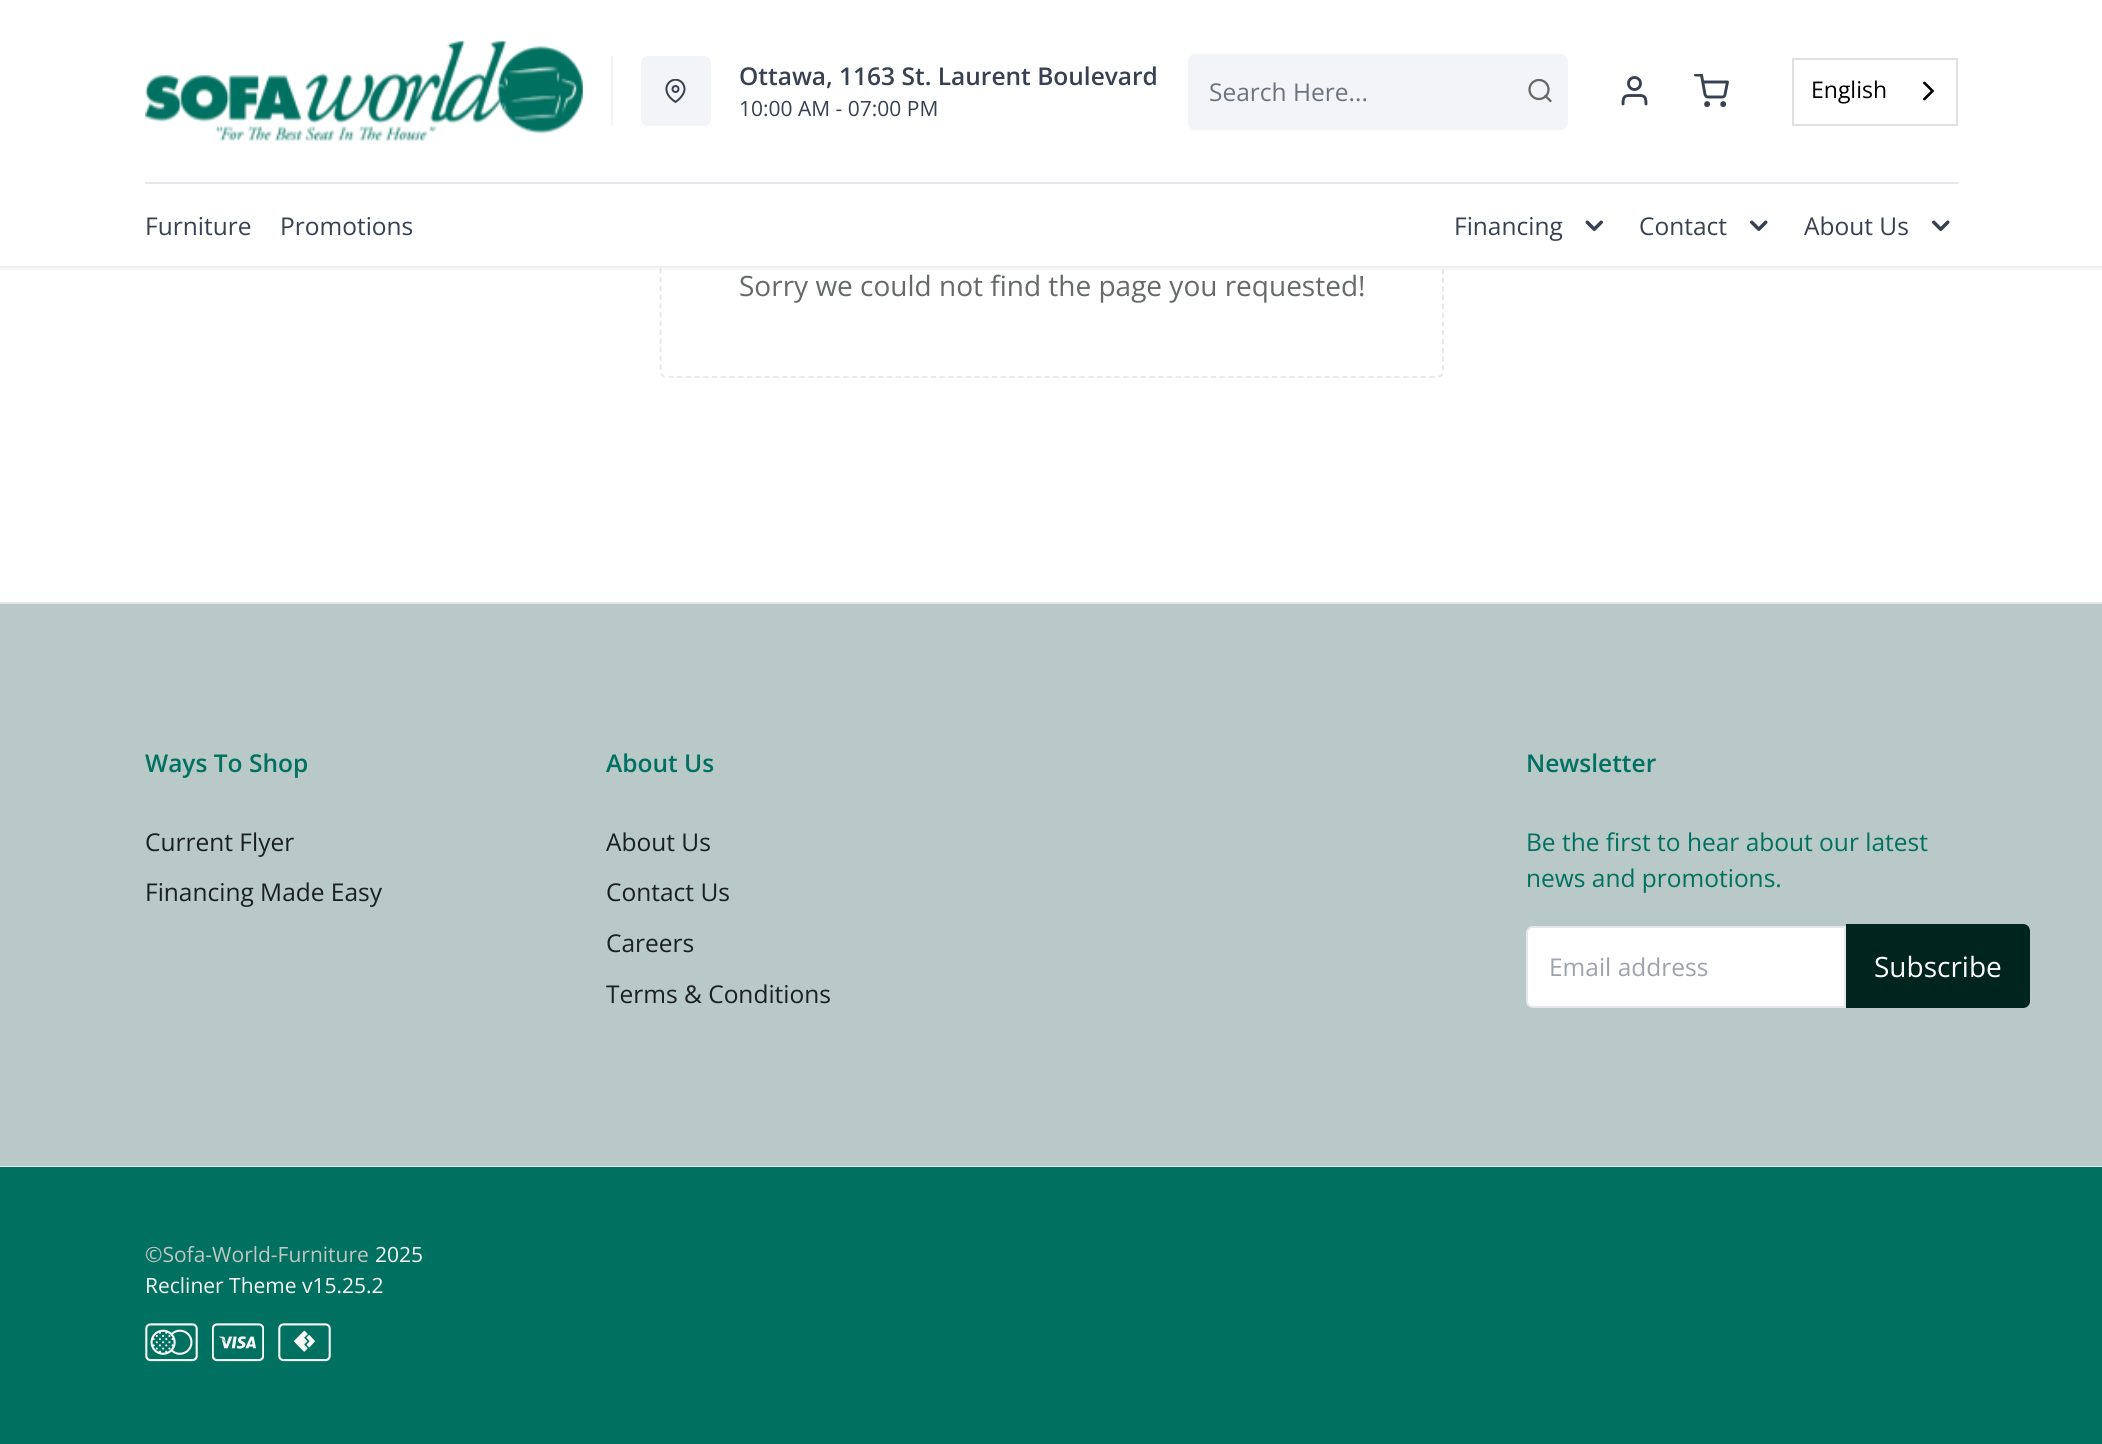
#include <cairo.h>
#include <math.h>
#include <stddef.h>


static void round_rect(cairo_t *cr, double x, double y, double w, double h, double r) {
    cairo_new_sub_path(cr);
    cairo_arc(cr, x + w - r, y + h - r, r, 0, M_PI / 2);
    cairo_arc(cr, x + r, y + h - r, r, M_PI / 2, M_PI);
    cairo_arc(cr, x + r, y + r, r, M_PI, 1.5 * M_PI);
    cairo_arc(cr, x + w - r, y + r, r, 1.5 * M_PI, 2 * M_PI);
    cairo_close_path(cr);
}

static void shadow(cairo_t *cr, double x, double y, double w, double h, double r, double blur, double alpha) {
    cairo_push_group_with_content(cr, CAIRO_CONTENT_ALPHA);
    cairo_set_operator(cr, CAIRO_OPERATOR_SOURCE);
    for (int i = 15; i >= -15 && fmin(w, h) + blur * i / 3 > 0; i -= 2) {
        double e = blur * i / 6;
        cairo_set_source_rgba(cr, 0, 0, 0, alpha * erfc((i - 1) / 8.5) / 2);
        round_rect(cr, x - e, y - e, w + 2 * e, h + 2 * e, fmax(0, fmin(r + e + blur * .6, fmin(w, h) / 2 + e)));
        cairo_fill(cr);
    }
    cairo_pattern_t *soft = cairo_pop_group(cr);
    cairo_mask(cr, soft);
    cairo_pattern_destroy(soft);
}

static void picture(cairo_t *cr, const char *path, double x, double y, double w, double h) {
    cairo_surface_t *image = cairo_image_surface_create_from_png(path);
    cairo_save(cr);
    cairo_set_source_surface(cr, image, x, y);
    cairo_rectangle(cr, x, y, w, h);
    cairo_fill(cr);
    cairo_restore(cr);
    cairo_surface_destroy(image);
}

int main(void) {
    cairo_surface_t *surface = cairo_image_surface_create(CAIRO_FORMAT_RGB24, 2102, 1444);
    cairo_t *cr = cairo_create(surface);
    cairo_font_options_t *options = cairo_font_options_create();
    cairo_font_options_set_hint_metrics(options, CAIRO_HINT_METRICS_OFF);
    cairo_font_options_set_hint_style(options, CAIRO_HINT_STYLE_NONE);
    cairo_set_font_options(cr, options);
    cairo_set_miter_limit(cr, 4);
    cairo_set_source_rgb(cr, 1, 1, 1);
    cairo_paint(cr);
    cairo_new_path(cr);
    cairo_move_to(cr, 667, 123.5);
    cairo_line_to(cr, 1437, 123.5);
    cairo_curve_to(cr, 1440, 123.5, 1443, 126, 1443, 129.5);
    cairo_line_to(cr, 1443, 371);
    cairo_curve_to(cr, 1443, 374.5, 1440, 377, 1437, 377);
    cairo_line_to(cr, 667, 377);
    cairo_curve_to(cr, 663.5, 377, 660.5, 374.5, 660.5, 371);
    cairo_line_to(cr, 660.5, 129.5);
    cairo_curve_to(cr, 660.5, 126, 663.5, 123.5, 667, 123.5);
    cairo_close_path(cr);
    cairo_set_source_rgb(cr, 0.898, 0.906, 0.922);
    cairo_set_line_width(cr, 1.8);
    cairo_set_dash(cr, (double[]){5.25, 3.5}, 2, 0);
    cairo_stroke(cr);
    cairo_set_source_rgb(cr, 0, 0, 0);
    shadow(cr, 0, 184, 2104, 84, 0, 2, 0.05);
    shadow(cr, 0, 184, 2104, 84, 0, 2.5, 0.05);
    cairo_set_source_rgb(cr, 1, 1, 1);
    cairo_rectangle(cr, 2, 122, 2100, 60);
    cairo_fill(cr);
    picture(cr, "img1.png", 145, 40, 438, 101);
    cairo_set_source_rgb(cr, 0.953, 0.957, 0.965);
    cairo_rectangle(cr, 611, 56, 2, 70);
    cairo_fill(cr);
    round_rect(cr, 641, 56, 70, 70, 7);
    cairo_fill(cr);
    cairo_save(cr);
    cairo_rectangle(cr, 663, 79, 25, 24);
    cairo_clip(cr);
    cairo_new_path(cr);
    cairo_move_to(cr, 684.5, 89);
    cairo_curve_to(cr, 684.5, 96, 675.5, 102, 675.5, 102);
    cairo_curve_to(cr, 656, 89.5, 672.5, 73, 682, 82.5);
    cairo_curve_to(cr, 683.5, 84, 684.5, 86.5, 684.5, 89);
    cairo_close_path(cr);
    cairo_set_source_rgb(cr, 0.216, 0.255, 0.318);
    cairo_set_line_width(cr, 2);
    cairo_set_line_cap(cr, CAIRO_LINE_CAP_ROUND);
    cairo_set_line_join(cr, CAIRO_LINE_JOIN_ROUND);
    cairo_set_dash(cr, NULL, 0, 0);
    cairo_stroke(cr);
    cairo_restore(cr);
    cairo_arc(cr, 675.5, 89, 3, 0, 2 * M_PI);
    cairo_set_source_rgb(cr, 0.216, 0.255, 0.318);
    cairo_set_line_width(cr, 2);
    cairo_set_dash(cr, NULL, 0, 0);
    cairo_stroke(cr);
    cairo_select_font_face(cr, "Open Sans SemiBold", CAIRO_FONT_SLANT_NORMAL, CAIRO_FONT_WEIGHT_NORMAL);
    cairo_set_font_size(cr, 24.5);
    cairo_move_to(cr, 739, 85);
    cairo_show_text(cr, "Ottawa, 1163 St. Laurent Boulevard");
    cairo_select_font_face(cr, "Open Sans", CAIRO_FONT_SLANT_NORMAL, CAIRO_FONT_WEIGHT_NORMAL);
    cairo_set_font_size(cr, 21);
    cairo_move_to(cr, 739, 116);
    cairo_show_text(cr, "10:00 AM - 07:00 PM");
    cairo_set_source_rgb(cr, 0.953, 0.957, 0.965);
    round_rect(cr, 1188, 54, 380, 76, 7);
    cairo_fill(cr);
    cairo_set_font_size(cr, 24.5);
    cairo_set_source_rgb(cr, 0.42, 0.447, 0.502);
    cairo_move_to(cr, 1209, 101);
    cairo_show_text(cr, "Search Here...");
    cairo_new_path(cr);
    cairo_arc(cr, 1539, 89.5, 9.5, 0, 2 * M_PI);
    cairo_set_source_rgb(cr, 0.396, 0.416, 0.404);
    cairo_set_line_width(cr, 2.3);
    cairo_stroke(cr);
    cairo_new_path(cr);
    cairo_move_to(cr, 1550.5, 101);
    cairo_line_to(cr, 1545.5, 96);
    cairo_set_line_cap(cr, CAIRO_LINE_CAP_ROUND);
    cairo_set_line_join(cr, CAIRO_LINE_JOIN_ROUND);
    cairo_stroke(cr);
    cairo_new_path(cr);
    cairo_move_to(cr, 1646, 104);
    cairo_curve_to(cr, 1646, 94.5, 1643, 95.5, 1634.5, 95.5);
    cairo_curve_to(cr, 1626, 95.5, 1623, 94.5, 1623, 104);
    cairo_set_source_rgb(cr, 0.216, 0.255, 0.318);
    cairo_set_line_width(cr, 2.9);
    cairo_stroke(cr);
    cairo_arc(cr, 1634.5, 83.5, 6, 0, 2 * M_PI);
    cairo_set_line_cap(cr, CAIRO_LINE_CAP_BUTT);
    cairo_set_line_join(cr, CAIRO_LINE_JOIN_MITER);
    cairo_stroke(cr);
    cairo_arc(cr, 1707.1, 104.1, 1.5, 0, 2 * M_PI);
    cairo_stroke(cr);
    cairo_arc(cr, 1723.2, 104.1, 1.5, 0, 2 * M_PI);
    cairo_stroke(cr);
    cairo_save(cr);
    cairo_rectangle(cr, 1694, 74, 35, 35);
    cairo_clip(cr);
    cairo_new_path(cr);
    cairo_move_to(cr, 1695.5, 75);
    cairo_line_to(cr, 1701.5, 75);
    cairo_line_to(cr, 1705, 94.5);
    cairo_curve_to(cr, 1705.5, 96, 1706.5, 97, 1708, 97);
    cairo_line_to(cr, 1722.5, 97);
    cairo_curve_to(cr, 1723.5, 97, 1725, 96, 1725, 94.5);
    cairo_line_to(cr, 1727.5, 82);
    cairo_line_to(cr, 1703, 82);
    cairo_set_line_cap(cr, CAIRO_LINE_CAP_ROUND);
    cairo_set_line_join(cr, CAIRO_LINE_JOIN_ROUND);
    cairo_stroke(cr);
    cairo_restore(cr);
    cairo_rectangle(cr, 1793, 59, 164, 66);
    cairo_set_source_rgb(cr, 0.878, 0.878, 0.878);
    cairo_set_line_width(cr, 2);
    cairo_stroke(cr);
    cairo_set_font_size(cr, 23);
    cairo_set_source_rgb(cr, 0, 0, 0);
    cairo_move_to(cr, 1811, 98);
    cairo_show_text(cr, "English");
    picture(cr, "img2.png", 1923, 81, 11, 20);
    cairo_set_source_rgb(cr, 1, 1, 1);
    cairo_rectangle(cr, 0, 182, 2102, 84);
    cairo_fill(cr);
    cairo_set_source_rgb(cr, 0.898, 0.906, 0.922);
    cairo_rectangle(cr, 145, 182, 1813, 2);
    cairo_fill(cr);
    cairo_set_font_size(cr, 24.5);
    cairo_set_source_rgb(cr, 0.216, 0.255, 0.318);
    cairo_move_to(cr, 145, 235);
    cairo_show_text(cr, "Furniture");
    cairo_move_to(cr, 280, 235);
    cairo_show_text(cr, "Promotions");
    cairo_move_to(cr, 1454, 235);
    cairo_show_text(cr, "Financing");
    picture(cr, "img3.png", 1585, 220, 18, 11);
    cairo_move_to(cr, 1639, 235);
    cairo_show_text(cr, "Contact");
    picture(cr, "img4.png", 1750, 220, 18, 11);
    cairo_move_to(cr, 1804, 235);
    cairo_show_text(cr, "About Us");
    picture(cr, "img4.png", 1932, 220, 18, 11);
    cairo_set_font_size(cr, 28);
    cairo_set_source_rgb(cr, 0.396, 0.416, 0.404);
    cairo_move_to(cr, 739, 296);
    cairo_show_text(cr, "Sorry we could not find the page you requested!");
    cairo_set_source_rgb(cr, 0.722, 0.788, 0.78);
    cairo_rectangle(cr, 0, 604, 2102, 562);
    cairo_fill(cr);
    cairo_set_source_rgb(cr, 0.898, 0.898, 0.898);
    cairo_rectangle(cr, 0, 602, 2102, 2);
    cairo_fill(cr);
    cairo_set_source_rgb(cr, 0.898, 0.906, 0.922);
    cairo_rectangle(cr, 0, 1166, 2102, 1);
    cairo_fill(cr);
    cairo_select_font_face(cr, "Open Sans SemiBold", CAIRO_FONT_SLANT_NORMAL, CAIRO_FONT_WEIGHT_NORMAL);
    cairo_set_font_size(cr, 24.5);
    cairo_set_source_rgb(cr, 0, 0.439, 0.376);
    cairo_move_to(cr, 145, 772);
    cairo_show_text(cr, "Ways To Shop");
    cairo_select_font_face(cr, "Open Sans", CAIRO_FONT_SLANT_NORMAL, CAIRO_FONT_WEIGHT_NORMAL);
    cairo_set_source_rgb(cr, 0.102, 0.122, 0.122);
    cairo_move_to(cr, 145, 851);
    cairo_show_text(cr, "Current Flyer");
    cairo_move_to(cr, 145, 901);
    cairo_show_text(cr, "Financing Made Easy");
    cairo_select_font_face(cr, "Open Sans SemiBold", CAIRO_FONT_SLANT_NORMAL, CAIRO_FONT_WEIGHT_NORMAL);
    cairo_set_source_rgb(cr, 0, 0.439, 0.376);
    cairo_move_to(cr, 606, 772);
    cairo_show_text(cr, "About Us");
    cairo_select_font_face(cr, "Open Sans", CAIRO_FONT_SLANT_NORMAL, CAIRO_FONT_WEIGHT_NORMAL);
    cairo_set_source_rgb(cr, 0.102, 0.122, 0.122);
    cairo_move_to(cr, 606, 851);
    cairo_show_text(cr, "About Us");
    cairo_move_to(cr, 606, 901);
    cairo_show_text(cr, "Contact Us");
    cairo_move_to(cr, 606, 952);
    cairo_show_text(cr, "Careers");
    cairo_move_to(cr, 606, 1003);
    cairo_show_text(cr, "Terms & Conditions");
    cairo_select_font_face(cr, "Open Sans SemiBold", CAIRO_FONT_SLANT_NORMAL, CAIRO_FONT_WEIGHT_NORMAL);
    cairo_set_source_rgb(cr, 0, 0.439, 0.376);
    cairo_move_to(cr, 1526, 772);
    cairo_show_text(cr, "Newsletter");
    cairo_select_font_face(cr, "Open Sans", CAIRO_FONT_SLANT_NORMAL, CAIRO_FONT_WEIGHT_NORMAL);
    cairo_move_to(cr, 1526, 851);
    cairo_show_text(cr, "Be the first to hear about our latest");
    cairo_move_to(cr, 1526, 887);
    cairo_show_text(cr, "news and promotions.");
    cairo_set_source_rgb(cr, 1, 1, 1);
    cairo_new_path(cr);
    cairo_move_to(cr, 1533, 927);
    cairo_line_to(cr, 1845, 927);
    cairo_line_to(cr, 1845, 1007);
    cairo_line_to(cr, 1533, 1007);
    cairo_curve_to(cr, 1529.5, 1007, 1527, 1004.5, 1527, 1001);
    cairo_line_to(cr, 1527, 933);
    cairo_curve_to(cr, 1527, 929.5, 1529.5, 927, 1533, 927);
    cairo_close_path(cr);
    cairo_fill_preserve(cr);
    cairo_set_source_rgb(cr, 0.898, 0.906, 0.922);
    cairo_stroke(cr);
    cairo_set_source_rgb(cr, 0.612, 0.639, 0.686);
    cairo_move_to(cr, 1549, 976);
    cairo_show_text(cr, "Email address");
    cairo_set_source_rgb(cr, 0, 0.141, 0.118);
    cairo_new_path(cr);
    cairo_move_to(cr, 1846, 924);
    cairo_line_to(cr, 2023, 924);
    cairo_curve_to(cr, 2027, 924, 2030, 927, 2030, 931);
    cairo_line_to(cr, 2030, 1001);
    cairo_curve_to(cr, 2030, 1005, 2027, 1008, 2023, 1008);
    cairo_line_to(cr, 1846, 1008);
    cairo_close_path(cr);
    cairo_fill(cr);
    cairo_set_font_size(cr, 28);
    cairo_set_source_rgb(cr, 1, 1, 1);
    cairo_move_to(cr, 1874, 977);
    cairo_show_text(cr, "Subscribe");
    cairo_set_source_rgb(cr, 0, 0.439, 0.376);
    cairo_rectangle(cr, 0, 1167, 2102, 277);
    cairo_fill(cr);
    cairo_set_font_size(cr, 21);
    cairo_set_source_rgb(cr, 0.761, 0.776, 0.776);
    cairo_move_to(cr, 145, 1262);
    cairo_show_text(cr, "©Sofa-World-Furniture");
    cairo_set_source_rgb(cr, 0.969, 0.969, 0.969);
    cairo_move_to(cr, 375, 1262);
    cairo_show_text(cr, "2025");
    cairo_move_to(cr, 145, 1293);
    cairo_show_text(cr, "Recliner Theme v15.25.2");
    picture(cr, "img5.png", 145, 1323, 53, 39);
    picture(cr, "img6.png", 212, 1323, 52, 39);
    picture(cr, "img7.png", 278, 1323, 53, 39);
    cairo_surface_write_to_png(surface, "page.png");
    cairo_font_options_destroy(options);
    cairo_destroy(cr);
    cairo_surface_destroy(surface);
    return 0;
}
